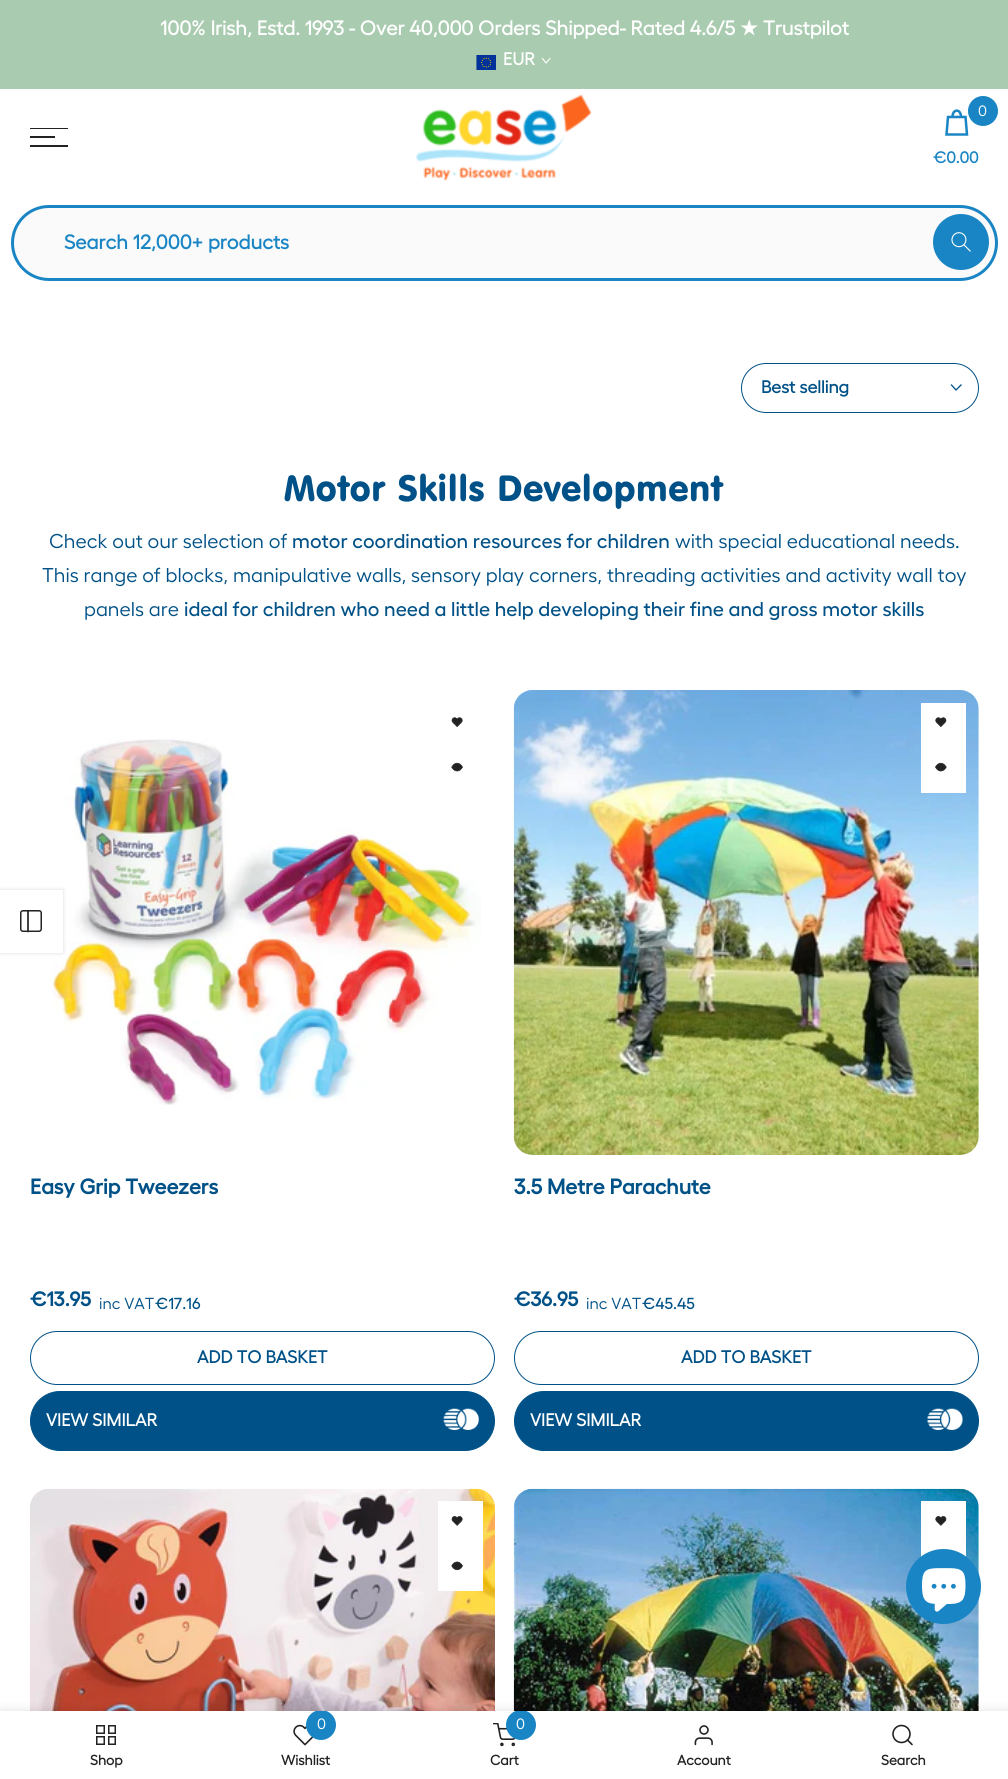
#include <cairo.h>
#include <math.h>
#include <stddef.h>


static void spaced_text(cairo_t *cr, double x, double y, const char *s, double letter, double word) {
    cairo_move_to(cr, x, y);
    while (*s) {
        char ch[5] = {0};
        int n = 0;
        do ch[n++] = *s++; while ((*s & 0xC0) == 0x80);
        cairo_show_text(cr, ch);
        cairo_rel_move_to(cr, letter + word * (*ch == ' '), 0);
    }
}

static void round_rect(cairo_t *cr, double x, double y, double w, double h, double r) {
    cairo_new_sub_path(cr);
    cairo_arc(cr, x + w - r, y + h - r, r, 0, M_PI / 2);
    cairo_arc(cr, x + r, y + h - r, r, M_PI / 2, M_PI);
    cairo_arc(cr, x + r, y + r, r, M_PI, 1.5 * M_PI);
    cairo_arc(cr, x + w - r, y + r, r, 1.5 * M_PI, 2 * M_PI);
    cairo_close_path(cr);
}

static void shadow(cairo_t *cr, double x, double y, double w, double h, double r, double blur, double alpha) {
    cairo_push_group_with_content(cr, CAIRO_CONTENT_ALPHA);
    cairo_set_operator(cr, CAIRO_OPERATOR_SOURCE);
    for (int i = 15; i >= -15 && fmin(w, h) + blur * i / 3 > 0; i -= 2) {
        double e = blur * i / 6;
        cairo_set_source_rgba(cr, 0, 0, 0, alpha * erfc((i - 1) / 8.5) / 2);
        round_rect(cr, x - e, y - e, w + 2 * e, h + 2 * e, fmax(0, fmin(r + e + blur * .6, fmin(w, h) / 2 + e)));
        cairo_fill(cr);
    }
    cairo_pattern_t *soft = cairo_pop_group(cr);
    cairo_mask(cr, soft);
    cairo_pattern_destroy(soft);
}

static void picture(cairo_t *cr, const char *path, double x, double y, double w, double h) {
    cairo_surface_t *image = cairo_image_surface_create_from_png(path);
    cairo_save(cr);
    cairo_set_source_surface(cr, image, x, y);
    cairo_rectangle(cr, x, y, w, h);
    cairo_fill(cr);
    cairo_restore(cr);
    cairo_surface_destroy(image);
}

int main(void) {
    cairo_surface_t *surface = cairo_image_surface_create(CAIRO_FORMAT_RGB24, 1008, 1779);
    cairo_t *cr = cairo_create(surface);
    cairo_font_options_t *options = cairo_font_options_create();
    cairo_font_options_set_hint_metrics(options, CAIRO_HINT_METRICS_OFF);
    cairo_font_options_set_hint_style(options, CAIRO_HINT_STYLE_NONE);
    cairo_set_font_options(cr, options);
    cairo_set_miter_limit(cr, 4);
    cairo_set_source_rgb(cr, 1, 1, 1);
    cairo_paint(cr);
    cairo_set_source_rgb(cr, 0.663, 0.796, 0.686);
    cairo_rectangle(cr, 0, 0, 1008, 89);
    cairo_fill(cr);
    cairo_select_font_face(cr, "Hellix", CAIRO_FONT_SLANT_NORMAL, CAIRO_FONT_WEIGHT_BOLD);
    cairo_set_font_size(cr, 20);
    cairo_set_source_rgb(cr, 1, 1, 1);
    cairo_move_to(cr, 160, 35);
    cairo_show_text(cr, "100% Irish, Estd. 1993 - Over 40,000 Orders Shipped- Rated 4.6/5");
    cairo_select_font_face(cr, "DejaVu Sans", CAIRO_FONT_SLANT_NORMAL, CAIRO_FONT_WEIGHT_BOLD);
    cairo_move_to(cr, 740, 35);
    cairo_show_text(cr, "★");
    cairo_select_font_face(cr, "Hellix", CAIRO_FONT_SLANT_NORMAL, CAIRO_FONT_WEIGHT_BOLD);
    cairo_move_to(cr, 763, 35);
    cairo_show_text(cr, "Trustpilot");
    picture(cr, "img1.png", 476, 55, 20, 15);
    cairo_set_font_size(cr, 17.5);
    cairo_move_to(cr, 503, 65);
    cairo_show_text(cr, "EUR");
    cairo_new_path(cr);
    cairo_move_to(cr, 550, 58.5);
    cairo_line_to(cr, 546, 63);
    cairo_line_to(cr, 542.5, 58.5);
    cairo_set_line_width(cr, 1.1);
    cairo_set_line_cap(cr, CAIRO_LINE_CAP_SQUARE);
    cairo_stroke(cr);
    cairo_set_source_rgb(cr, 0.133, 0.133, 0.133);
    cairo_rectangle(cr, 30, 128, 38, 1);
    cairo_fill(cr);
    cairo_rectangle(cr, 30, 136, 25, 2);
    cairo_fill(cr);
    cairo_rectangle(cr, 30, 145, 38, 2);
    cairo_fill(cr);
    picture(cr, "img2.png", 416, 94, 176, 87);
    cairo_new_path(cr);
    cairo_move_to(cr, 952.5, 117);
    cairo_curve_to(cr, 952.5, 108.5, 961, 108.5, 961, 117);
    cairo_move_to(cr, 948, 117);
    cairo_line_to(cr, 965.5, 117);
    cairo_line_to(cr, 967, 134.5);
    cairo_line_to(cr, 946.5, 134.5);
    cairo_close_path(cr);
    cairo_set_source_rgb(cr, 0.102, 0.522, 0.769);
    cairo_set_line_width(cr, 2.5);
    cairo_set_line_cap(cr, CAIRO_LINE_CAP_BUTT);
    cairo_stroke(cr);
    cairo_arc(cr, 983, 111, 15, 0, 2 * M_PI);
    cairo_fill(cr);
    cairo_select_font_face(cr, "Hellix", CAIRO_FONT_SLANT_NORMAL, CAIRO_FONT_WEIGHT_NORMAL);
    cairo_set_font_size(cr, 15);
    cairo_set_source_rgb(cr, 1, 1, 1);
    cairo_move_to(cr, 978, 116);
    cairo_show_text(cr, "0");
    cairo_select_font_face(cr, "Hellix", CAIRO_FONT_SLANT_NORMAL, CAIRO_FONT_WEIGHT_BOLD);
    cairo_set_font_size(cr, 16);
    cairo_set_source_rgb(cr, 0.102, 0.522, 0.769);
    cairo_move_to(cr, 933, 163);
    cairo_show_text(cr, "€0.00");
    cairo_set_source_rgb(cr, 0.98, 0.98, 0.98);
    round_rect(cr, 12.5, 206.5, 984, 73, 36.5);
    cairo_fill_preserve(cr);
    cairo_set_source_rgb(cr, 0.102, 0.522, 0.769);
    cairo_set_line_width(cr, 3);
    cairo_stroke(cr);
    cairo_set_font_size(cr, 20);
    cairo_move_to(cr, 64, 249);
    cairo_show_text(cr, "Search 12,000+ products");
    cairo_new_path(cr);
    cairo_arc(cr, 961, 242, 28, 0, 2 * M_PI);
    cairo_fill(cr);
    picture(cr, "img3.png", 951, 232, 20, 20);
    round_rect(cr, 741.5, 363.5, 237, 49, 24.5);
    cairo_set_source_rgb(cr, 0, 0.318, 0.529);
    cairo_set_line_width(cr, 1);
    cairo_stroke(cr);
    cairo_set_font_size(cr, 17.5);
    cairo_move_to(cr, 761, 393);
    cairo_show_text(cr, "Best selling");
    cairo_new_path(cr);
    cairo_move_to(cr, 961, 385);
    cairo_line_to(cr, 956, 390);
    cairo_line_to(cr, 951.5, 385);
    cairo_set_line_width(cr, 1.3);
    cairo_set_line_cap(cr, CAIRO_LINE_CAP_SQUARE);
    cairo_stroke(cr);
    cairo_select_font_face(cr, "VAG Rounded", CAIRO_FONT_SLANT_NORMAL, CAIRO_FONT_WEIGHT_NORMAL);
    cairo_set_font_size(cr, 36);
    spaced_text(cr, 284, 501, "Motor Skills Development", 0.6, 0);
    cairo_select_font_face(cr, "Hellix", CAIRO_FONT_SLANT_NORMAL, CAIRO_FONT_WEIGHT_NORMAL);
    cairo_set_font_size(cr, 20);
    cairo_move_to(cr, 49, 548);
    cairo_show_text(cr, "Check out our selection of");
    cairo_select_font_face(cr, "Hellix Medium", CAIRO_FONT_SLANT_NORMAL, CAIRO_FONT_WEIGHT_NORMAL);
    cairo_move_to(cr, 292, 548);
    cairo_show_text(cr, "motor coordination resources for children");
    cairo_select_font_face(cr, "Hellix", CAIRO_FONT_SLANT_NORMAL, CAIRO_FONT_WEIGHT_NORMAL);
    cairo_move_to(cr, 675, 548);
    cairo_show_text(cr, "with special educational needs.");
    cairo_move_to(cr, 42, 582);
    cairo_show_text(cr, "This range of blocks, manipulative walls, sensory play corners, threading activities and activity wall toy");
    cairo_move_to(cr, 84, 616);
    cairo_show_text(cr, "panels are");
    cairo_select_font_face(cr, "Hellix Medium", CAIRO_FONT_SLANT_NORMAL, CAIRO_FONT_WEIGHT_NORMAL);
    cairo_move_to(cr, 184, 616);
    cairo_show_text(cr, "ideal for children who need a little help developing their fine and gross motor skills");
    picture(cr, "img4.png", 451, 717, 12, 10);
    picture(cr, "img6.png", 51, 739, 430, 366);
    picture(cr, "img5.png", 451, 762, 12, 10);
    cairo_select_font_face(cr, "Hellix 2", CAIRO_FONT_SLANT_NORMAL, CAIRO_FONT_WEIGHT_BOLD);
    cairo_set_font_size(cr, 21.25);
    cairo_move_to(cr, 30, 1194);
    cairo_show_text(cr, "Easy Grip Tweezers");
    cairo_set_font_size(cr, 20);
    cairo_move_to(cr, 30, 1306);
    cairo_show_text(cr, "€13.95");
    cairo_select_font_face(cr, "Hellix", CAIRO_FONT_SLANT_NORMAL, CAIRO_FONT_WEIGHT_NORMAL);
    cairo_set_font_size(cr, 16);
    cairo_move_to(cr, 99, 1309);
    cairo_show_text(cr, "inc VAT");
    cairo_select_font_face(cr, "Hellix Medium", CAIRO_FONT_SLANT_NORMAL, CAIRO_FONT_WEIGHT_NORMAL);
    cairo_move_to(cr, 155, 1309);
    cairo_show_text(cr, "€17.16");
    round_rect(cr, 30.5, 1331.5, 464, 53, 26.5);
    cairo_set_line_width(cr, 1);
    cairo_set_line_cap(cr, CAIRO_LINE_CAP_BUTT);
    cairo_stroke(cr);
    cairo_select_font_face(cr, "Hellix", CAIRO_FONT_SLANT_NORMAL, CAIRO_FONT_WEIGHT_BOLD);
    cairo_set_font_size(cr, 17.5);
    cairo_move_to(cr, 197, 1363);
    cairo_show_text(cr, "ADD TO BASKET");
    round_rect(cr, 30.5, 1391.5, 464, 59, 29.5);
    cairo_fill_preserve(cr);
    cairo_stroke(cr);
    cairo_set_source_rgb(cr, 1, 1, 1);
    cairo_move_to(cr, 46, 1426);
    cairo_show_text(cr, "VIEW SIMILAR");
    picture(cr, "img7.png", 443, 1408, 36, 22);
    picture(cr, "img8.png", 513, 690, 466, 465);
    cairo_rectangle(cr, 921, 703, 45, 90);
    cairo_fill(cr);
    picture(cr, "img9.png", 935, 717, 12, 10);
    picture(cr, "img10.png", 935, 762, 12, 10);
    cairo_select_font_face(cr, "Hellix 2", CAIRO_FONT_SLANT_NORMAL, CAIRO_FONT_WEIGHT_BOLD);
    cairo_set_font_size(cr, 21.25);
    cairo_set_source_rgb(cr, 0, 0.318, 0.529);
    cairo_move_to(cr, 514, 1194);
    cairo_show_text(cr, "3.5 Metre Parachute");
    cairo_set_font_size(cr, 20);
    cairo_move_to(cr, 514, 1306);
    cairo_show_text(cr, "€36.95");
    cairo_select_font_face(cr, "Hellix", CAIRO_FONT_SLANT_NORMAL, CAIRO_FONT_WEIGHT_NORMAL);
    cairo_set_font_size(cr, 16);
    cairo_move_to(cr, 586, 1309);
    cairo_show_text(cr, "inc VAT");
    cairo_select_font_face(cr, "Hellix Medium", CAIRO_FONT_SLANT_NORMAL, CAIRO_FONT_WEIGHT_NORMAL);
    cairo_move_to(cr, 642, 1309);
    cairo_show_text(cr, "€45.45");
    round_rect(cr, 514.5, 1331.5, 464, 53, 26.5);
    cairo_stroke(cr);
    cairo_select_font_face(cr, "Hellix", CAIRO_FONT_SLANT_NORMAL, CAIRO_FONT_WEIGHT_BOLD);
    cairo_set_font_size(cr, 17.5);
    cairo_move_to(cr, 681, 1363);
    cairo_show_text(cr, "ADD TO BASKET");
    round_rect(cr, 514.5, 1391.5, 464, 59, 29.5);
    cairo_fill_preserve(cr);
    cairo_stroke(cr);
    cairo_set_source_rgb(cr, 1, 1, 1);
    cairo_move_to(cr, 530, 1426);
    cairo_show_text(cr, "VIEW SIMILAR");
    picture(cr, "img11.png", 927, 1408, 36, 22);
    picture(cr, "img12.png", 30, 1488, 465, 223);
    cairo_rectangle(cr, 438, 1501, 45, 90);
    cairo_fill(cr);
    picture(cr, "img13.png", 451, 1516, 12, 10);
    picture(cr, "img14.png", 451, 1561, 12, 10);
    picture(cr, "img15.png", 513, 1488, 466, 223);
    cairo_rectangle(cr, 921, 1501, 45, 56);
    cairo_fill(cr);
    picture(cr, "img16.png", 935, 1516, 12, 10);
    cairo_set_source_rgb(cr, 0, 0, 0);
    shadow(cr, 0, 890, 63, 63, 0, 2, 0.15);
    cairo_set_source_rgb(cr, 1, 1, 1);
    cairo_rectangle(cr, 0, 890, 63, 63);
    cairo_fill(cr);
    round_rect(cr, 20.75, 910.75, 20.5, 20.5, 2.25);
    cairo_set_source_rgb(cr, 0.133, 0.133, 0.133);
    cairo_set_line_width(cr, 1.5);
    cairo_stroke(cr);
    cairo_new_path(cr);
    cairo_move_to(cr, 28, 911);
    cairo_line_to(cr, 28, 931.5);
    cairo_set_line_width(cr, 1.7);
    cairo_set_line_cap(cr, CAIRO_LINE_CAP_ROUND);
    cairo_set_line_join(cr, CAIRO_LINE_JOIN_ROUND);
    cairo_stroke(cr);
    cairo_set_source_rgb(cr, 0.102, 0.522, 0.769);
    cairo_arc(cr, 943.5, 1586.5, 37.5, 0, 2 * M_PI);
    cairo_fill(cr);
    picture(cr, "img17.png", 922, 1568, 44, 44);
    cairo_set_source_rgb(cr, 0, 0, 0);
    shadow(cr, 0, 1711, 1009, 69, 0, 5.5, 0.12);
    cairo_set_source_rgb(cr, 1, 1, 1);
    cairo_rectangle(cr, 0, 1711, 1008, 68);
    cairo_fill(cr);
    cairo_rectangle(cr, 96.75, 1725.75, 7.5, 7.5);
    cairo_set_source_rgb(cr, 0.133, 0.133, 0.133);
    cairo_set_line_width(cr, 1.5);
    cairo_set_line_cap(cr, CAIRO_LINE_CAP_BUTT);
    cairo_set_line_join(cr, CAIRO_LINE_JOIN_MITER);
    cairo_stroke(cr);
    cairo_rectangle(cr, 108.75, 1725.75, 6.5, 7.5);
    cairo_stroke(cr);
    cairo_rectangle(cr, 96.75, 1736.75, 7.5, 7.5);
    cairo_stroke(cr);
    cairo_rectangle(cr, 108.75, 1736.75, 6.5, 7.5);
    cairo_stroke(cr);
    cairo_set_font_size(cr, 14);
    cairo_move_to(cr, 90, 1765);
    cairo_show_text(cr, "Shop");
    picture(cr, "img18.png", 293, 1724, 21, 22);
    cairo_save(cr);
    cairo_rectangle(cr, 0, 1711, 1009, 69);
    cairo_clip(cr);
    cairo_set_source_rgb(cr, 0.102, 0.522, 0.769);
    cairo_arc(cr, 321, 1725, 15, 0, 2 * M_PI);
    cairo_fill(cr);
    cairo_restore(cr);
    cairo_select_font_face(cr, "Hellix", CAIRO_FONT_SLANT_NORMAL, CAIRO_FONT_WEIGHT_NORMAL);
    cairo_set_font_size(cr, 15);
    cairo_set_source_rgb(cr, 1, 1, 1);
    cairo_move_to(cr, 317, 1729);
    cairo_show_text(cr, "0");
    cairo_select_font_face(cr, "Hellix", CAIRO_FONT_SLANT_NORMAL, CAIRO_FONT_WEIGHT_BOLD);
    cairo_set_font_size(cr, 14);
    cairo_set_source_rgb(cr, 0.133, 0.133, 0.133);
    cairo_move_to(cr, 281, 1765);
    cairo_show_text(cr, "Wishlist");
    picture(cr, "img19.png", 493, 1723, 23, 24);
    cairo_save(cr);
    cairo_rectangle(cr, 0, 1711, 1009, 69);
    cairo_clip(cr);
    cairo_set_source_rgb(cr, 0.102, 0.522, 0.769);
    cairo_arc(cr, 521, 1725, 15, 0, 2 * M_PI);
    cairo_fill(cr);
    cairo_restore(cr);
    cairo_select_font_face(cr, "Hellix", CAIRO_FONT_SLANT_NORMAL, CAIRO_FONT_WEIGHT_NORMAL);
    cairo_set_font_size(cr, 15);
    cairo_set_source_rgb(cr, 1, 1, 1);
    cairo_move_to(cr, 516, 1729);
    cairo_show_text(cr, "0");
    cairo_select_font_face(cr, "Hellix", CAIRO_FONT_SLANT_NORMAL, CAIRO_FONT_WEIGHT_BOLD);
    cairo_set_font_size(cr, 14);
    cairo_set_source_rgb(cr, 0.133, 0.133, 0.133);
    cairo_move_to(cr, 490, 1765);
    cairo_show_text(cr, "Cart");
    picture(cr, "img20.png", 694, 1725, 19, 21);
    cairo_move_to(cr, 677, 1765);
    cairo_show_text(cr, "Account");
    cairo_new_path(cr);
    cairo_arc(cr, 901.5, 1734, 8.5, 0, 2 * M_PI);
    cairo_set_line_width(cr, 1.6);
    cairo_stroke(cr);
    cairo_new_path(cr);
    cairo_move_to(cr, 912, 1744.5);
    cairo_line_to(cr, 907.5, 1740);
    cairo_set_line_cap(cr, CAIRO_LINE_CAP_ROUND);
    cairo_set_line_join(cr, CAIRO_LINE_JOIN_ROUND);
    cairo_stroke(cr);
    cairo_move_to(cr, 881, 1765);
    cairo_show_text(cr, "Search");
    cairo_surface_write_to_png(surface, "page.png");
    cairo_font_options_destroy(options);
    cairo_destroy(cr);
    cairo_surface_destroy(surface);
    return 0;
}
